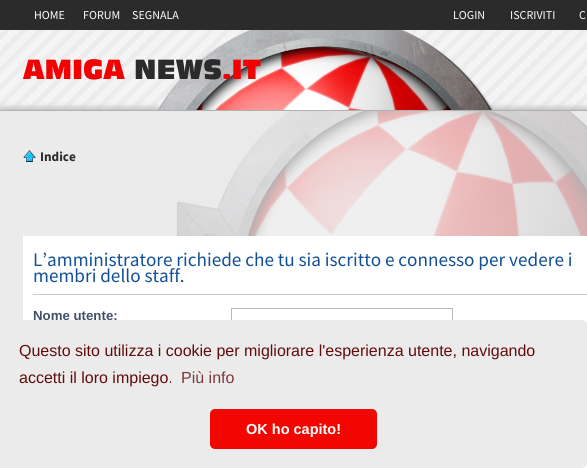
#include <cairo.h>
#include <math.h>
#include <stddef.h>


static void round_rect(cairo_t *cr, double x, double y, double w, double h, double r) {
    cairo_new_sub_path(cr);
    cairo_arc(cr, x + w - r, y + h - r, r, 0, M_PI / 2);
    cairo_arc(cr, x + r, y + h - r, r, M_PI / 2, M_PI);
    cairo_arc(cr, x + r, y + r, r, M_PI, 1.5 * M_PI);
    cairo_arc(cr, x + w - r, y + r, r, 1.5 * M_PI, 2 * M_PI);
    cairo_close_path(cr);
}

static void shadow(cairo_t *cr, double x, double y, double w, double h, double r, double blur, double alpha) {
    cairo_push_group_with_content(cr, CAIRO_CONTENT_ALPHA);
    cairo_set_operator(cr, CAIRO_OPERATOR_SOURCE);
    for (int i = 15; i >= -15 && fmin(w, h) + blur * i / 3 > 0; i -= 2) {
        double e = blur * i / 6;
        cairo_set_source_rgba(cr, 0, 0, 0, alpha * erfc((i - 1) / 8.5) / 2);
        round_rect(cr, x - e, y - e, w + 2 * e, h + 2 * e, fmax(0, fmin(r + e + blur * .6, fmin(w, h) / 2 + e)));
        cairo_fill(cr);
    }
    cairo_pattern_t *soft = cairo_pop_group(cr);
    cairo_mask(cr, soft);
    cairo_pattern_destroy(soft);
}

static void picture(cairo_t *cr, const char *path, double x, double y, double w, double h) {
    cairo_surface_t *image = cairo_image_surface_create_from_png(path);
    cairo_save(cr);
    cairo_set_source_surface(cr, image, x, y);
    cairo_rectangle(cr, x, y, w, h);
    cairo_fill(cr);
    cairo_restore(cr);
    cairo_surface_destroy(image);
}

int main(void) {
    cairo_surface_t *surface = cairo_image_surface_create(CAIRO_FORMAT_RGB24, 587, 468);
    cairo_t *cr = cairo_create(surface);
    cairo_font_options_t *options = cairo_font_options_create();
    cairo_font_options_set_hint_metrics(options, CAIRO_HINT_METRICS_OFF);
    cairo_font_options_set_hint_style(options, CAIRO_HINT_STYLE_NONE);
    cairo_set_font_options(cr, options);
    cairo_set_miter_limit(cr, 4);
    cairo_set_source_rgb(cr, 0.918, 0.918, 0.918);
    cairo_paint(cr);
    picture(cr, "img1.png", 176, 111, 411, 125);
    picture(cr, "img2.png", 0, 0, 587, 110);
    cairo_select_font_face(cr, "Source Sans Pro", CAIRO_FONT_SLANT_NORMAL, CAIRO_FONT_WEIGHT_NORMAL);
    cairo_set_font_size(cr, 12);
    cairo_set_source_rgb(cr, 1, 1, 1);
    cairo_move_to(cr, 34, 19);
    cairo_show_text(cr, "HOME");
    cairo_move_to(cr, 83, 19);
    cairo_show_text(cr, "FORUM");
    cairo_move_to(cr, 132, 19);
    cairo_show_text(cr, "SEGNALA");
    cairo_move_to(cr, 453, 19);
    cairo_show_text(cr, "LOGIN");
    cairo_move_to(cr, 510, 19);
    cairo_show_text(cr, "ISCRIVITI");
    cairo_move_to(cr, 579, 19);
    cairo_show_text(cr, "C");
    cairo_select_font_face(cr, "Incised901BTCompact", CAIRO_FONT_SLANT_NORMAL, CAIRO_FONT_WEIGHT_NORMAL);
    cairo_set_font_size(cr, 26);
    cairo_set_source_rgb(cr, 0.957, 0, 0);
    cairo_move_to(cr, 23, 79);
    cairo_show_text(cr, "AMIGA");
    cairo_save(cr);
    cairo_rectangle(cr, 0, 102, 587, 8);
    cairo_clip(cr);
    cairo_set_source_rgb(cr, 0.769, 0.769, 0.769);
    shadow(cr, 0, 107, 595, 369, 0, 2.5, 1);
    cairo_restore(cr);
    picture(cr, "img3.png", 158, 30, 336, 80);
    cairo_set_source_rgb(cr, 0.169, 0.169, 0.169);
    cairo_move_to(cr, 134, 79);
    cairo_show_text(cr, "NEWS");
    cairo_set_source_rgb(cr, 0.957, 0, 0);
    cairo_move_to(cr, 222, 79);
    cairo_show_text(cr, ".IT");
    cairo_set_source_rgb(cr, 0.69, 0.69, 0.69);
    cairo_rectangle(cr, 0, 110, 587, 1);
    cairo_fill(cr);
    picture(cr, "img4.png", 23, 150, 13, 12);
    cairo_select_font_face(cr, "Source Sans Pro", CAIRO_FONT_SLANT_NORMAL, CAIRO_FONT_WEIGHT_BOLD);
    cairo_set_font_size(cr, 13.25);
    cairo_set_source_rgb(cr, 0.169, 0.169, 0.169);
    cairo_move_to(cr, 40, 161);
    cairo_show_text(cr, "Indice");
    cairo_set_source_rgb(cr, 1, 1, 1);
    cairo_rectangle(cr, 23, 236, 564, 232);
    cairo_fill(cr);
    cairo_set_source_rgb(cr, 0.8, 0.8, 0.8);
    cairo_rectangle(cr, 33, 294, 554, 1);
    cairo_fill(cr);
    cairo_select_font_face(cr, "Source Sans Pro", CAIRO_FONT_SLANT_NORMAL, CAIRO_FONT_WEIGHT_NORMAL);
    cairo_set_font_size(cr, 19.2);
    cairo_set_source_rgb(cr, 0.067, 0.314, 0.596);
    cairo_move_to(cr, 33, 266);
    cairo_show_text(cr, "L’amministratore richiede che tu sia iscritto e connesso per vedere i");
    cairo_move_to(cr, 33, 282);
    cairo_show_text(cr, "membri dello staff.");
    cairo_select_font_face(cr, "Liberation Sans", CAIRO_FONT_SLANT_NORMAL, CAIRO_FONT_WEIGHT_BOLD);
    cairo_set_font_size(cr, 13.25);
    cairo_set_source_rgb(cr, 0.259, 0.314, 0.404);
    cairo_move_to(cr, 33, 320);
    cairo_show_text(cr, "Nome utente:");
    cairo_rectangle(cr, 231.5, 308.5, 221, 20);
    cairo_set_source_rgb(cr, 0.706, 0.729, 0.753);
    cairo_set_line_width(cr, 1);
    cairo_stroke(cr);
    cairo_set_source_rgb(cr, 0.918, 0.918, 0.918);
    round_rect(cr, 0, 320, 587, 148, 5);
    cairo_fill(cr);
    cairo_select_font_face(cr, "Liberation Sans", CAIRO_FONT_SLANT_NORMAL, CAIRO_FONT_WEIGHT_NORMAL);
    cairo_set_font_size(cr, 16);
    cairo_set_source_rgb(cr, 0.388, 0.043, 0.043);
    cairo_move_to(cr, 19, 356);
    cairo_show_text(cr, "Questo sito utilizza i cookie per migliorare l'esperienza utente, navigando");
    cairo_move_to(cr, 19, 383);
    cairo_show_text(cr, "accetti il loro impiego.");
    cairo_set_source_rgb(cr, 0.494, 0.22, 0.22);
    cairo_move_to(cr, 181, 383);
    cairo_show_text(cr, "Più info");
    cairo_set_source_rgb(cr, 0.949, 0.024, 0);
    round_rect(cr, 210, 409, 167, 40, 5);
    cairo_fill(cr);
    cairo_select_font_face(cr, "Liberation Sans", CAIRO_FONT_SLANT_NORMAL, CAIRO_FONT_WEIGHT_BOLD);
    cairo_set_font_size(cr, 14.5);
    cairo_set_source_rgb(cr, 1, 1, 1);
    cairo_move_to(cr, 246, 434);
    cairo_show_text(cr, "OK ho capito!");
    cairo_surface_write_to_png(surface, "page.png");
    cairo_font_options_destroy(options);
    cairo_destroy(cr);
    cairo_surface_destroy(surface);
    return 0;
}
